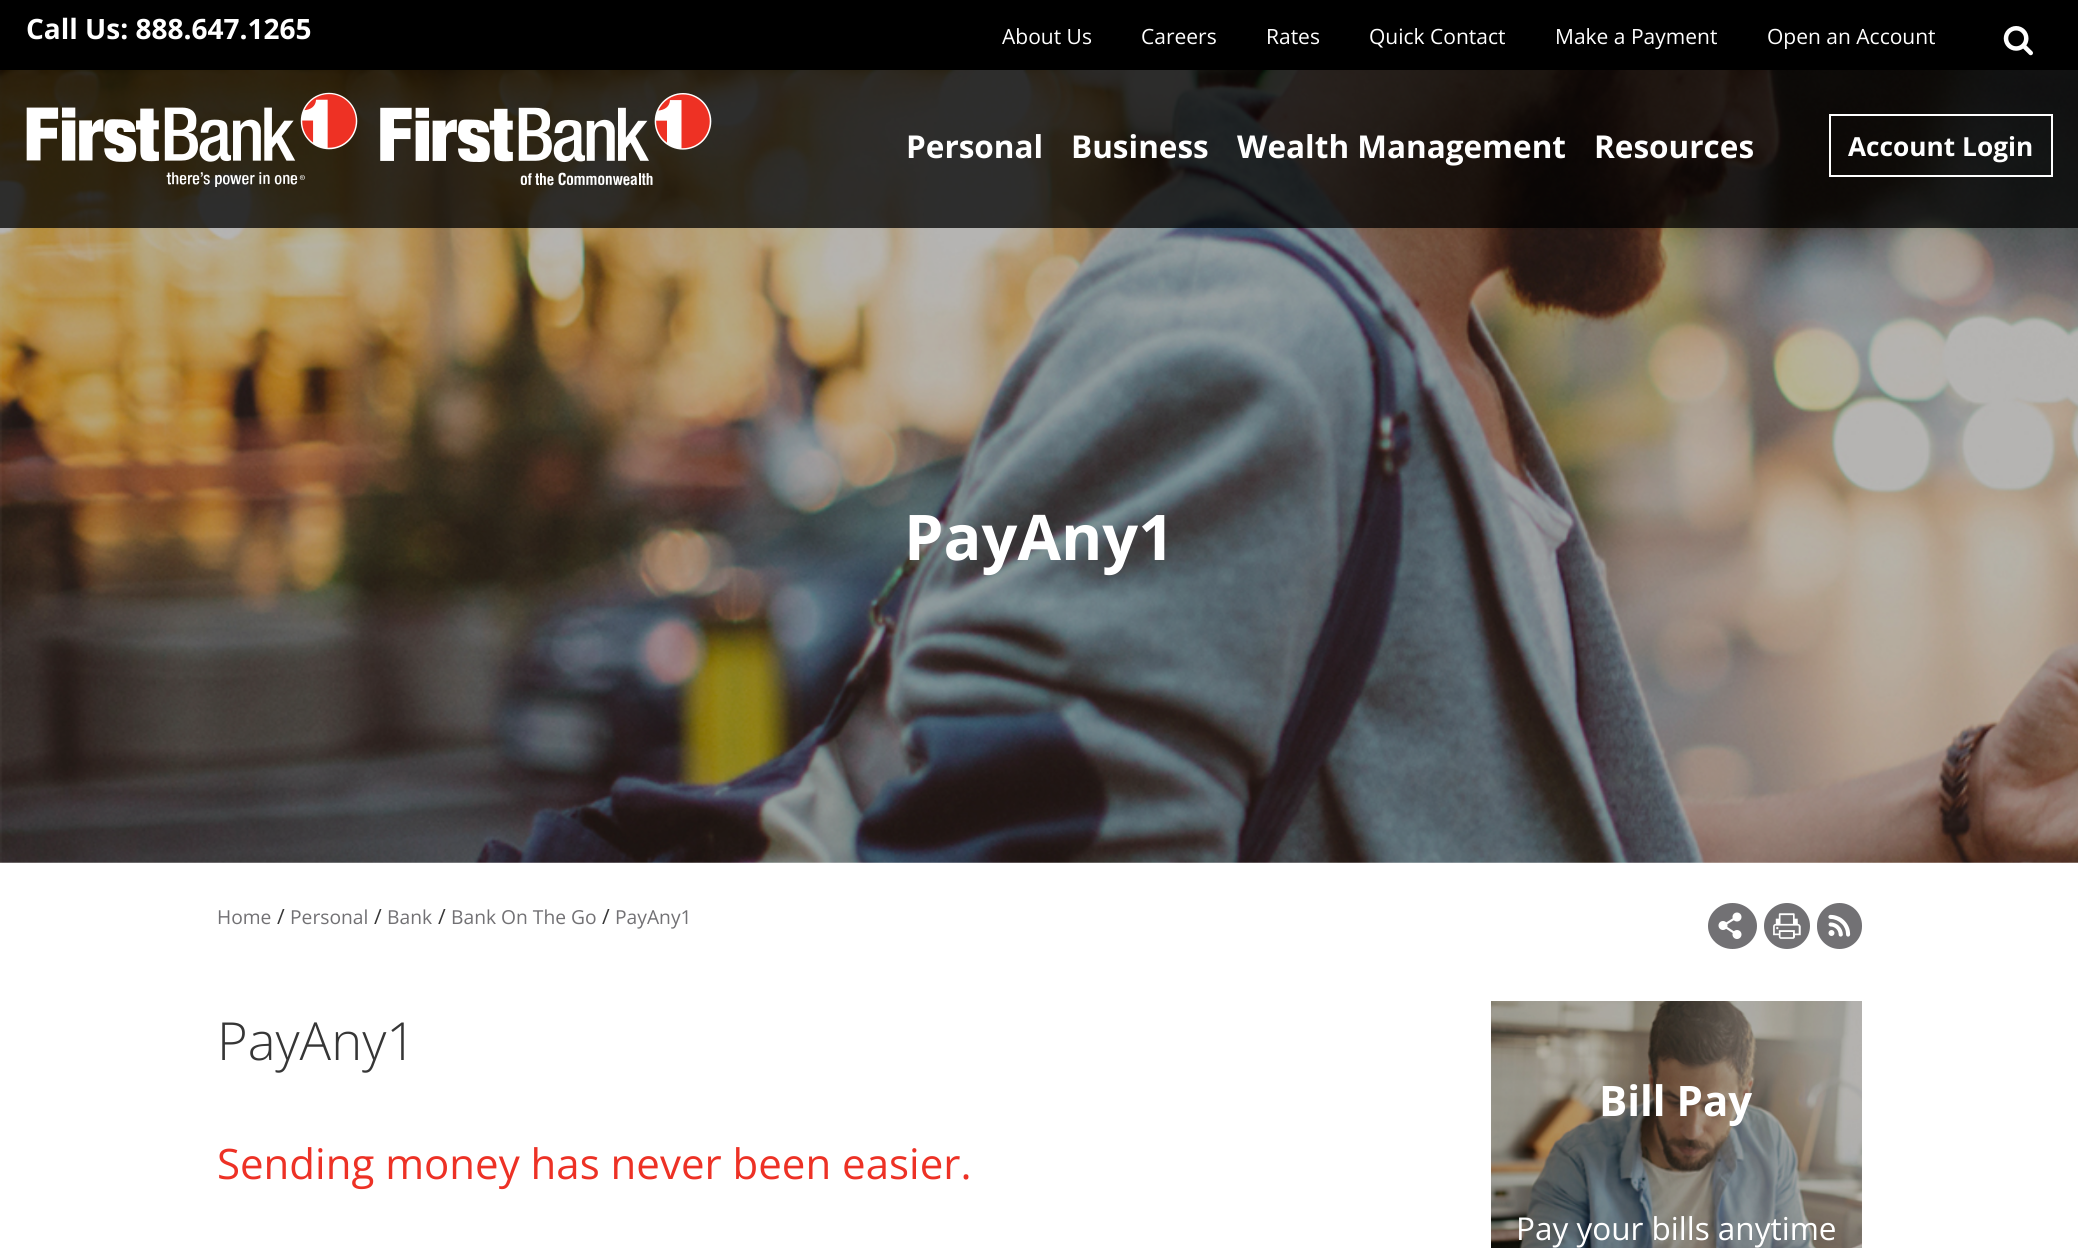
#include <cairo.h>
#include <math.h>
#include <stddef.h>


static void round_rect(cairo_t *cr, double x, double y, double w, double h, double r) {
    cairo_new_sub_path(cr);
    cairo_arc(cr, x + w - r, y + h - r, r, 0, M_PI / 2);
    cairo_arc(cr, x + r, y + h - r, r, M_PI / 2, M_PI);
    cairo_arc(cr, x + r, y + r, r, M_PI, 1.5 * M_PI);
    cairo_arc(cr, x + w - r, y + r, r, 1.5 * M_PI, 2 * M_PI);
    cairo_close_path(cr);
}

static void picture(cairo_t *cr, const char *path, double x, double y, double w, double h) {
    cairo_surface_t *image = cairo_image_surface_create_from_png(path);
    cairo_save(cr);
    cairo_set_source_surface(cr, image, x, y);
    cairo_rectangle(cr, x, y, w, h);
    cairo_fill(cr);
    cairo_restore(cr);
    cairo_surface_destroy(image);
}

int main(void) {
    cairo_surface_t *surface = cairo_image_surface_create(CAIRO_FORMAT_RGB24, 2078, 1248);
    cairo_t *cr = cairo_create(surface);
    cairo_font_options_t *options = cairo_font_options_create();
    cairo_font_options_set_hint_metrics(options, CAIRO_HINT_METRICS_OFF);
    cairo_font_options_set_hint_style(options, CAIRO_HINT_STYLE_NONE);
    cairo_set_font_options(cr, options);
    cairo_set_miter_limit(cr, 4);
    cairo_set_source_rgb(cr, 1, 1, 1);
    cairo_paint(cr);
    cairo_set_source_rgb(cr, 0, 0, 0);
    cairo_rectangle(cr, 0, 0, 2078, 70);
    cairo_fill(cr);
    cairo_select_font_face(cr, "Open Sans", CAIRO_FONT_SLANT_NORMAL, CAIRO_FONT_WEIGHT_BOLD);
    cairo_set_font_size(cr, 28);
    cairo_set_source_rgb(cr, 1, 1, 1);
    cairo_move_to(cr, 26, 39);
    cairo_show_text(cr, "Call Us: 888.647.1265");
    cairo_select_font_face(cr, "Open Sans", CAIRO_FONT_SLANT_NORMAL, CAIRO_FONT_WEIGHT_NORMAL);
    cairo_set_font_size(cr, 21);
    cairo_move_to(cr, 1002, 44);
    cairo_show_text(cr, "About Us");
    cairo_move_to(cr, 1141, 44);
    cairo_show_text(cr, "Careers");
    cairo_move_to(cr, 1266, 44);
    cairo_show_text(cr, "Rates");
    cairo_move_to(cr, 1369, 44);
    cairo_show_text(cr, "Quick Contact");
    cairo_move_to(cr, 1555, 44);
    cairo_show_text(cr, "Make a Payment");
    cairo_move_to(cr, 1767, 44);
    cairo_show_text(cr, "Open an Account");
    picture(cr, "img1.png", 2003, 26, 30, 30);
    picture(cr, "img4.png", 0, 70, 2078, 793);
    cairo_set_source_rgba(cr, 0, 0, 0, 0.75);
    cairo_rectangle(cr, 0, 70, 2078, 158);
    cairo_fill(cr);
    picture(cr, "img2.png", 26, 92, 332, 95);
    picture(cr, "img3.png", 380, 93, 332, 93);
    cairo_select_font_face(cr, "Open Sans", CAIRO_FONT_SLANT_NORMAL, CAIRO_FONT_WEIGHT_BOLD);
    cairo_set_font_size(cr, 31.5);
    cairo_set_source_rgb(cr, 1, 1, 1);
    cairo_move_to(cr, 906, 158);
    cairo_show_text(cr, "Personal");
    cairo_move_to(cr, 1071, 158);
    cairo_show_text(cr, "Business");
    cairo_move_to(cr, 1237, 158);
    cairo_show_text(cr, "Wealth Management");
    cairo_move_to(cr, 1594, 158);
    cairo_show_text(cr, "Resources");
    cairo_rectangle(cr, 1830, 115, 222, 61);
    cairo_stroke(cr);
    cairo_set_font_size(cr, 26.25);
    cairo_move_to(cr, 1848, 156);
    cairo_show_text(cr, "Account Login");
    cairo_set_font_size(cr, 63);
    cairo_move_to(cr, 904, 560);
    cairo_show_text(cr, "PayAny1");
    cairo_select_font_face(cr, "Open Sans", CAIRO_FONT_SLANT_NORMAL, CAIRO_FONT_WEIGHT_NORMAL);
    cairo_set_font_size(cr, 19.25);
    cairo_set_source_rgb(cr, 0.447, 0.443, 0.455);
    cairo_move_to(cr, 217, 924);
    cairo_show_text(cr, "Home");
    cairo_set_font_size(cr, 21);
    cairo_set_source_rgb(cr, 0.212, 0.212, 0.212);
    cairo_move_to(cr, 277, 924);
    cairo_show_text(cr, "/");
    cairo_set_font_size(cr, 19.25);
    cairo_set_source_rgb(cr, 0.447, 0.443, 0.455);
    cairo_move_to(cr, 290, 924);
    cairo_show_text(cr, "Personal");
    cairo_set_font_size(cr, 21);
    cairo_set_source_rgb(cr, 0.212, 0.212, 0.212);
    cairo_move_to(cr, 374, 924);
    cairo_show_text(cr, "/");
    cairo_set_font_size(cr, 19.25);
    cairo_set_source_rgb(cr, 0.447, 0.443, 0.455);
    cairo_move_to(cr, 387, 924);
    cairo_show_text(cr, "Bank");
    cairo_set_font_size(cr, 21);
    cairo_set_source_rgb(cr, 0.212, 0.212, 0.212);
    cairo_move_to(cr, 438, 924);
    cairo_show_text(cr, "/");
    cairo_set_font_size(cr, 19.25);
    cairo_set_source_rgb(cr, 0.447, 0.443, 0.455);
    cairo_move_to(cr, 451, 924);
    cairo_show_text(cr, "Bank On The Go");
    cairo_set_font_size(cr, 21);
    cairo_set_source_rgb(cr, 0.212, 0.212, 0.212);
    cairo_move_to(cr, 602, 924);
    cairo_show_text(cr, "/");
    cairo_set_font_size(cr, 19.25);
    cairo_set_source_rgb(cr, 0.447, 0.443, 0.455);
    cairo_move_to(cr, 615, 924);
    cairo_show_text(cr, "PayAny1");
    cairo_new_path(cr);
    cairo_move_to(cr, 1732.5, 903);
    cairo_curve_to(cr, 1746, 903, 1757, 913.5, 1757, 926);
    cairo_curve_to(cr, 1757, 938.5, 1746, 949, 1732.5, 949);
    cairo_curve_to(cr, 1719, 949, 1708, 938.5, 1708, 926);
    cairo_curve_to(cr, 1708, 913.5, 1719, 903, 1732.5, 903);
    cairo_close_path(cr);
    cairo_fill(cr);
    picture(cr, "img5.png", 1718, 912, 24, 27);
    cairo_arc(cr, 1787, 926, 23, 0, 2 * M_PI);
    cairo_fill(cr);
    picture(cr, "img6.png", 1773, 913, 28, 26);
    round_rect(cr, 1817, 903, 45, 46, 22.5);
    cairo_fill(cr);
    picture(cr, "img7.png", 1828, 914, 23, 23);
    cairo_select_font_face(cr, "Open Sans Light", CAIRO_FONT_SLANT_NORMAL, CAIRO_FONT_WEIGHT_NORMAL);
    cairo_set_font_size(cr, 52.5);
    cairo_set_source_rgb(cr, 0.212, 0.212, 0.212);
    cairo_move_to(cr, 217, 1060);
    cairo_show_text(cr, "PayAny1");
    cairo_select_font_face(cr, "Open Sans", CAIRO_FONT_SLANT_NORMAL, CAIRO_FONT_WEIGHT_NORMAL);
    cairo_set_font_size(cr, 42);
    cairo_set_source_rgb(cr, 0.929, 0.192, 0.145);
    cairo_move_to(cr, 217, 1179);
    cairo_show_text(cr, "Sending money has never been easier.");
    picture(cr, "img8.png", 1491, 1001, 371, 247);
    cairo_select_font_face(cr, "Open Sans", CAIRO_FONT_SLANT_NORMAL, CAIRO_FONT_WEIGHT_BOLD);
    cairo_set_source_rgb(cr, 1, 1, 1);
    cairo_move_to(cr, 1599, 1116);
    cairo_show_text(cr, "Bill Pay");
    cairo_select_font_face(cr, "Open Sans", CAIRO_FONT_SLANT_NORMAL, CAIRO_FONT_WEIGHT_NORMAL);
    cairo_set_font_size(cr, 31.5);
    cairo_move_to(cr, 1516, 1240);
    cairo_show_text(cr, "Pay your bills anytime");
    cairo_surface_write_to_png(surface, "page.png");
    cairo_font_options_destroy(options);
    cairo_destroy(cr);
    cairo_surface_destroy(surface);
    return 0;
}
